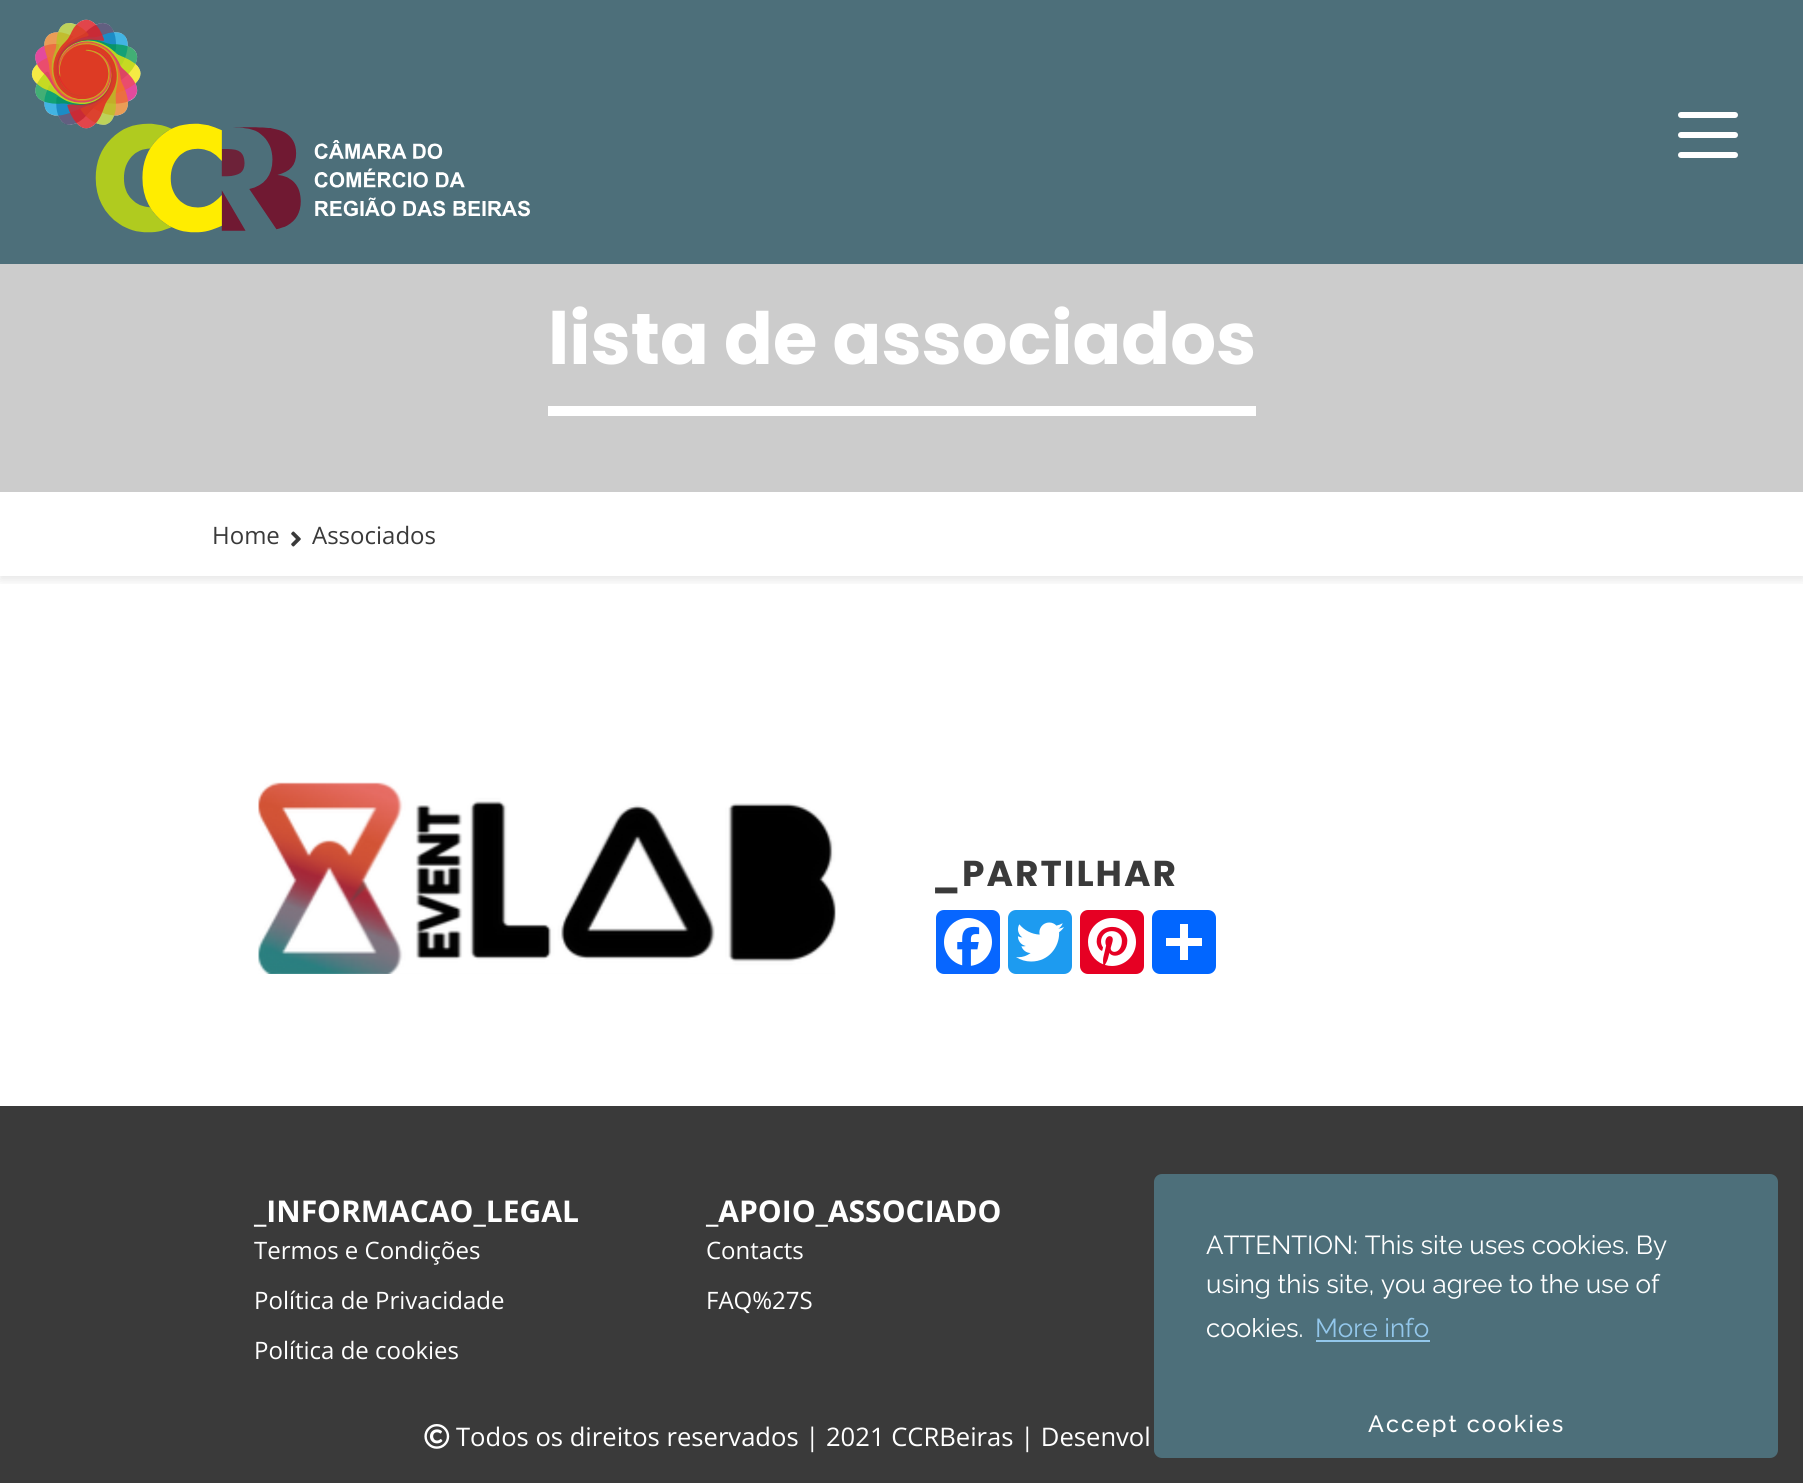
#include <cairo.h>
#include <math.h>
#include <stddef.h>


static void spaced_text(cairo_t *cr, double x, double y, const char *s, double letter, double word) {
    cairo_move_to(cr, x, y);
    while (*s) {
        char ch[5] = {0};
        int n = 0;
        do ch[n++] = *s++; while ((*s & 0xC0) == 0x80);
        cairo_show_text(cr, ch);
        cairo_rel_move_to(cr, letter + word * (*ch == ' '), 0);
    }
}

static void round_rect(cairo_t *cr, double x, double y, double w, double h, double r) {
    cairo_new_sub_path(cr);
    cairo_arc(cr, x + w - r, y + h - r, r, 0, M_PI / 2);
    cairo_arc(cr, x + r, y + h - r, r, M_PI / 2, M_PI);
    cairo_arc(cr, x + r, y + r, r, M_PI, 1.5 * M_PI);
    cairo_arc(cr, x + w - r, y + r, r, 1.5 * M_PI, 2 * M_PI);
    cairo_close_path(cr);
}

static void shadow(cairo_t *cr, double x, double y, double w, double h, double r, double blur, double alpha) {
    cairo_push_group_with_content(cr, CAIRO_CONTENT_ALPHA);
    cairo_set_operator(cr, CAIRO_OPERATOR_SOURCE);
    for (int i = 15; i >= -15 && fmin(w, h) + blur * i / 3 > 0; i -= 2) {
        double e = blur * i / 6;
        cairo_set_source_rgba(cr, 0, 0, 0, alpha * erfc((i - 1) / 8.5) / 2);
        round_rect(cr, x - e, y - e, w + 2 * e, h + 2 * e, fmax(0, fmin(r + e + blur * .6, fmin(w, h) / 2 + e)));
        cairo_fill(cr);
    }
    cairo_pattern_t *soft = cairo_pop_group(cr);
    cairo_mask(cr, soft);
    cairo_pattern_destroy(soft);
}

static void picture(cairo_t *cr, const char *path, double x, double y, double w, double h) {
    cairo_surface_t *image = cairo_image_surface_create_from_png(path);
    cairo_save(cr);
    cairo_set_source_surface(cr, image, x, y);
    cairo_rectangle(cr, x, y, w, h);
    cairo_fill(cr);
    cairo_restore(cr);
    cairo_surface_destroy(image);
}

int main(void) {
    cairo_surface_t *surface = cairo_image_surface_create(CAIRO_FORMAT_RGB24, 1803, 1483);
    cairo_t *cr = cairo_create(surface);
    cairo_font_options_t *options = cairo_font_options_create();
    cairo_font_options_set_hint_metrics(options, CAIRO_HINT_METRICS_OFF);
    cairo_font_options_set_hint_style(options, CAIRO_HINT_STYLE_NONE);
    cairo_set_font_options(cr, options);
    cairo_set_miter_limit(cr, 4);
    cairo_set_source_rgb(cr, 1, 1, 1);
    cairo_paint(cr);
    cairo_set_source_rgb(cr, 0.302, 0.435, 0.478);
    cairo_rectangle(cr, 0, 0, 1803, 264);
    cairo_fill(cr);
    picture(cr, "img1.png", 31, 19, 499, 214);
    cairo_set_source_rgb(cr, 1, 1, 1);
    round_rect(cr, 1678, 112, 60, 6, 3);
    cairo_fill(cr);
    round_rect(cr, 1678, 132, 60, 6, 3);
    cairo_fill(cr);
    round_rect(cr, 1678, 152, 60, 6, 3);
    cairo_fill(cr);
    cairo_save(cr);
    cairo_rectangle(cr, 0, 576, 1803, 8);
    cairo_clip(cr);
    cairo_set_source_rgb(cr, 0, 0, 0);
    shadow(cr, 0, 496, 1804, 84, 0, 5, 0.1);
    cairo_restore(cr);
    cairo_rectangle(cr, 5, 491, 1794, 1);
    cairo_fill(cr);
    cairo_set_source_rgba(cr, 0, 0, 0, 0.2);
    cairo_rectangle(cr, 0, 264, 1803, 228);
    cairo_fill(cr);
    cairo_set_source_rgb(cr, 1, 1, 1);
    cairo_rectangle(cr, 548, 406, 708, 10);
    cairo_fill(cr);
    cairo_select_font_face(cr, "Poppins", CAIRO_FONT_SLANT_NORMAL, CAIRO_FONT_WEIGHT_BOLD);
    cairo_set_font_size(cr, 72);
    cairo_move_to(cr, 548, 364);
    cairo_show_text(cr, "lista de associados");
    cairo_select_font_face(cr, "Open Sans", CAIRO_FONT_SLANT_NORMAL, CAIRO_FONT_WEIGHT_NORMAL);
    cairo_set_font_size(cr, 24);
    cairo_set_source_rgb(cr, 0.227, 0.227, 0.227);
    cairo_move_to(cr, 212, 544);
    cairo_show_text(cr, "Home");
    picture(cr, "img2.png", 291, 531, 10, 16);
    cairo_move_to(cr, 312, 544);
    cairo_show_text(cr, "Associados");
    picture(cr, "img3.png", 258, 782, 578, 192);
    cairo_select_font_face(cr, "Poppins", CAIRO_FONT_SLANT_NORMAL, CAIRO_FONT_WEIGHT_BOLD);
    cairo_set_font_size(cr, 36);
    spaced_text(cr, 932, 886, "_PARTILHAR", 2, 0);
    cairo_set_source_rgb(cr, 0.031, 0.4, 1);
    round_rect(cr, 936, 910, 64, 64, 8);
    cairo_fill(cr);
    picture(cr, "img4.png", 944, 918, 48, 48);
    cairo_set_source_rgb(cr, 0.114, 0.608, 0.941);
    round_rect(cr, 1008, 910, 64, 64, 8);
    cairo_fill(cr);
    picture(cr, "img5.png", 1016, 922, 48, 40);
    cairo_set_source_rgb(cr, 0.902, 0, 0.137);
    round_rect(cr, 1080, 910, 64, 64, 8);
    cairo_fill(cr);
    picture(cr, "img6.png", 1088, 918, 48, 48);
    cairo_set_source_rgb(cr, 0.004, 0.4, 1);
    round_rect(cr, 1152, 910, 64, 64, 8);
    cairo_fill(cr);
    cairo_set_source_rgb(cr, 1, 1, 1);
    cairo_rectangle(cr, 1180, 924, 8, 36);
    cairo_fill(cr);
    cairo_rectangle(cr, 1166, 938, 36, 8);
    cairo_fill(cr);
    cairo_set_source_rgb(cr, 0.227, 0.227, 0.227);
    cairo_rectangle(cr, 0, 1106, 1803, 377);
    cairo_fill(cr);
    cairo_select_font_face(cr, "Open Sans", CAIRO_FONT_SLANT_NORMAL, CAIRO_FONT_WEIGHT_BOLD);
    cairo_set_font_size(cr, 30);
    cairo_set_source_rgb(cr, 1, 1, 1);
    cairo_move_to(cr, 254, 1222);
    cairo_show_text(cr, "_INFORMACAO_LEGAL");
    cairo_select_font_face(cr, "Open Sans", CAIRO_FONT_SLANT_NORMAL, CAIRO_FONT_WEIGHT_NORMAL);
    cairo_set_font_size(cr, 24);
    cairo_move_to(cr, 254, 1259);
    cairo_show_text(cr, "Termos e Condições");
    cairo_move_to(cr, 254, 1309);
    cairo_show_text(cr, "Política de Privacidade");
    cairo_move_to(cr, 254, 1359);
    cairo_show_text(cr, "Política de cookies");
    cairo_select_font_face(cr, "Open Sans", CAIRO_FONT_SLANT_NORMAL, CAIRO_FONT_WEIGHT_BOLD);
    cairo_set_font_size(cr, 30);
    cairo_move_to(cr, 706, 1222);
    cairo_show_text(cr, "_APOIO_ASSOCIADO");
    cairo_select_font_face(cr, "Open Sans", CAIRO_FONT_SLANT_NORMAL, CAIRO_FONT_WEIGHT_NORMAL);
    cairo_set_font_size(cr, 24);
    cairo_move_to(cr, 706, 1259);
    cairo_show_text(cr, "Contacts");
    cairo_move_to(cr, 706, 1309);
    cairo_show_text(cr, "FAQ%27S");
    picture(cr, "img7.png", 424, 1424, 26, 25);
    cairo_set_font_size(cr, 25.6);
    cairo_move_to(cr, 456, 1446);
    cairo_show_text(cr, "Todos os direitos reservados | 2021 CCRBeiras | Desenvol");
    cairo_set_source_rgb(cr, 0.302, 0.435, 0.478);
    round_rect(cr, 1154, 1174, 624, 284, 8);
    cairo_fill(cr);
    cairo_select_font_face(cr, "Raleway", CAIRO_FONT_SLANT_NORMAL, CAIRO_FONT_WEIGHT_NORMAL);
    cairo_set_font_size(cr, 26);
    cairo_set_source_rgb(cr, 1, 1, 1);
    cairo_move_to(cr, 1206, 1254);
    cairo_show_text(cr, "ATTENTION: This site uses cookies. By");
    cairo_move_to(cr, 1206, 1293);
    cairo_show_text(cr, "using this site, you agree to the use of");
    cairo_move_to(cr, 1206, 1337);
    cairo_show_text(cr, "cookies.");
    cairo_set_source_rgb(cr, 0.576, 0.78, 0.918);
    cairo_move_to(cr, 1315, 1337);
    cairo_show_text(cr, "More info");
    cairo_rectangle(cr, 1316, 1340, 114, 2);
    cairo_fill(cr);
    cairo_select_font_face(cr, "Raleway Medium", CAIRO_FONT_SLANT_NORMAL, CAIRO_FONT_WEIGHT_NORMAL);
    cairo_set_font_size(cr, 23.5);
    cairo_set_source_rgb(cr, 1, 1, 1);
    spaced_text(cr, 1368, 1432, "Accept cookies", 2, 0);
    cairo_surface_write_to_png(surface, "page.png");
    cairo_font_options_destroy(options);
    cairo_destroy(cr);
    cairo_surface_destroy(surface);
    return 0;
}
